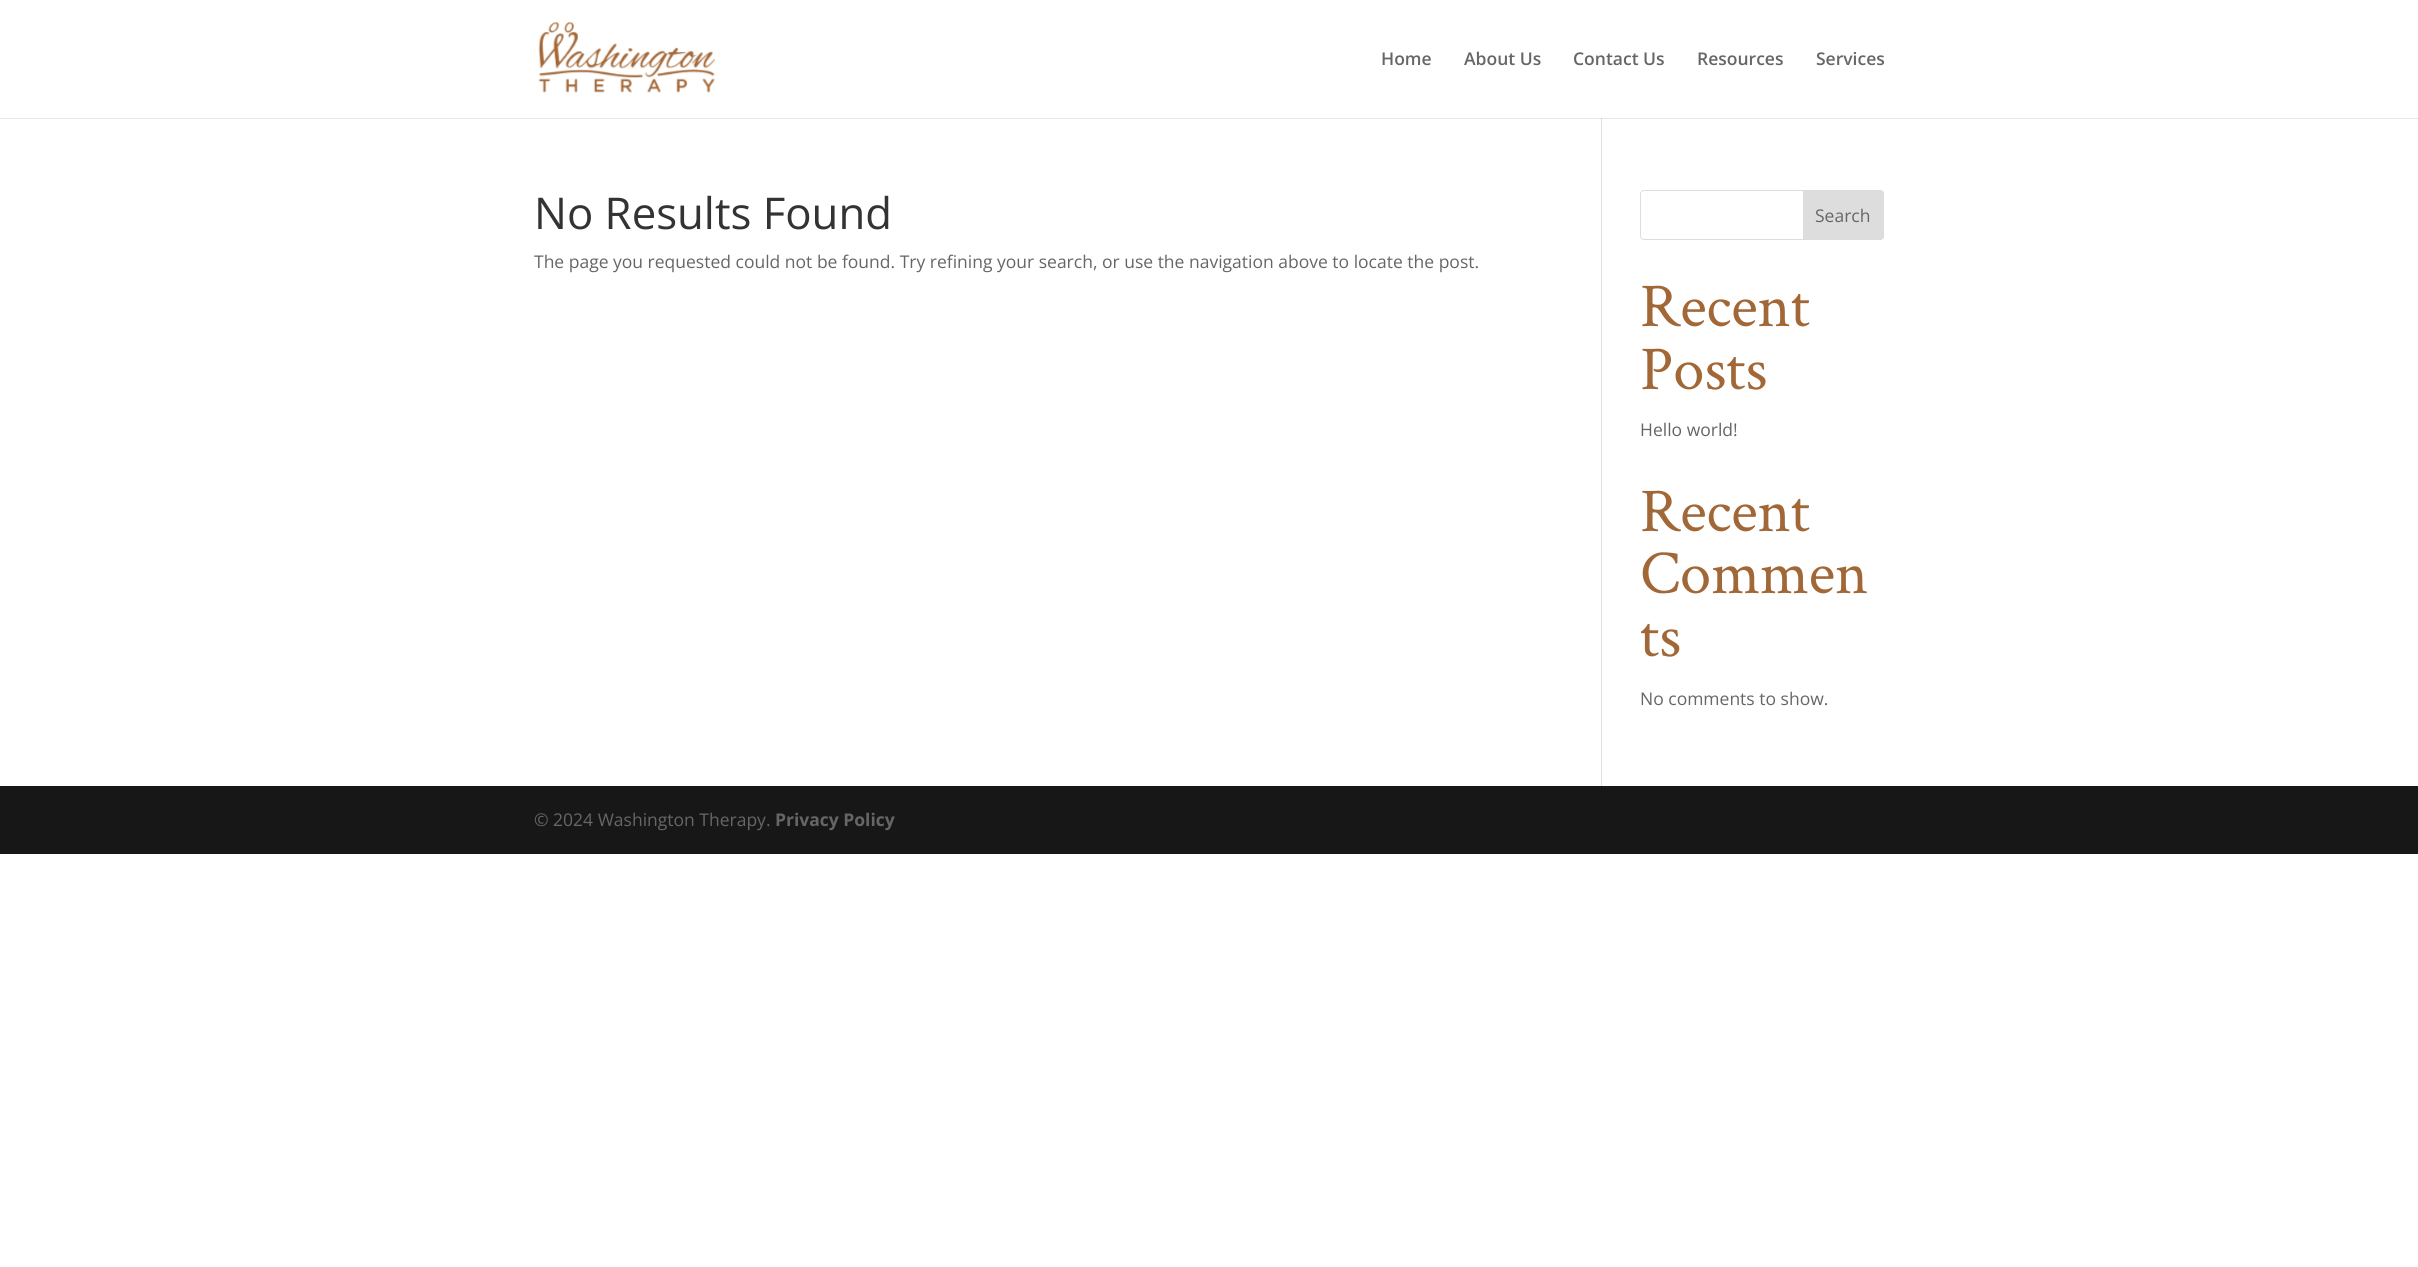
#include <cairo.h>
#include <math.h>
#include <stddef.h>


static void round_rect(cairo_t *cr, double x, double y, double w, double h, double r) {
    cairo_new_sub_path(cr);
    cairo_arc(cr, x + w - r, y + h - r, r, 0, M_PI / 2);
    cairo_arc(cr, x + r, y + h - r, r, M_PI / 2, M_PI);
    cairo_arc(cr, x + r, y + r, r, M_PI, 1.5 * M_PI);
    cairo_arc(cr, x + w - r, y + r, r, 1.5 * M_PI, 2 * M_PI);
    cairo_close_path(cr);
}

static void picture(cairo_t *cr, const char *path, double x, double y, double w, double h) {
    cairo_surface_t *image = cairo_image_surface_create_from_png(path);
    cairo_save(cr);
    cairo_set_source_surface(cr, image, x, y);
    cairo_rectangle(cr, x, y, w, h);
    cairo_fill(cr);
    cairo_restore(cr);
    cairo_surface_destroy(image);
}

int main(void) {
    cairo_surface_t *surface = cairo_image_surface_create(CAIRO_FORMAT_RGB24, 2418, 1267);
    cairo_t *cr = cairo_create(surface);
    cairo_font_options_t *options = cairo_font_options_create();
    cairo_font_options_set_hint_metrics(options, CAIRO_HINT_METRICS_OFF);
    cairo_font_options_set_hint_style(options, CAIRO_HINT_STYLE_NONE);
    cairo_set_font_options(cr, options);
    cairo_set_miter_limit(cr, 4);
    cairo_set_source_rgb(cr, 1, 1, 1);
    cairo_paint(cr);
    cairo_set_source_rgb(cr, 0.886, 0.886, 0.886);
    cairo_rectangle(cr, 1601, 118, 1, 668);
    cairo_fill(cr);
    cairo_set_source_rgba(cr, 0, 0, 0, 0.1);
    cairo_new_path(cr);
    cairo_move_to(cr, 0, 118);
    cairo_line_to(cr, 0, 119);
    cairo_line_to(cr, 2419, 119);
    cairo_line_to(cr, 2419, 1);
    cairo_line_to(cr, 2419, 118);
    cairo_close_path(cr);
    cairo_fill(cr);
    picture(cr, "img1.png", 538, 22, 178, 71);
    cairo_select_font_face(cr, "Open Sans SemiBold", CAIRO_FONT_SLANT_NORMAL, CAIRO_FONT_WEIGHT_NORMAL);
    cairo_set_font_size(cr, 17.5);
    cairo_set_source_rgb(cr, 0.4, 0.4, 0.4);
    cairo_move_to(cr, 1381, 65);
    cairo_show_text(cr, "Home");
    cairo_move_to(cr, 1464, 65);
    cairo_show_text(cr, "About Us");
    cairo_move_to(cr, 1573, 65);
    cairo_show_text(cr, "Contact Us");
    cairo_move_to(cr, 1697, 65);
    cairo_show_text(cr, "Resources");
    cairo_move_to(cr, 1816, 65);
    cairo_show_text(cr, "Services");
    cairo_select_font_face(cr, "Open Sans", CAIRO_FONT_SLANT_NORMAL, CAIRO_FONT_WEIGHT_NORMAL);
    cairo_set_font_size(cr, 43.75);
    cairo_set_source_rgb(cr, 0.2, 0.2, 0.2);
    cairo_move_to(cr, 534, 229);
    cairo_show_text(cr, "No Results Found");
    cairo_set_font_size(cr, 17.5);
    cairo_set_source_rgb(cr, 0.4, 0.4, 0.4);
    cairo_move_to(cr, 534, 268);
    cairo_show_text(cr, "The page you requested could not be found. Try refining your search, or use the navigation above to locate the post.");
    round_rect(cr, 1640.5, 190.5, 243, 49, 3.5);
    cairo_set_source_rgb(cr, 0.867, 0.867, 0.867);
    cairo_set_line_width(cr, 1);
    cairo_stroke(cr);
    cairo_new_path(cr);
    cairo_move_to(cr, 1803.5, 190.5);
    cairo_line_to(cr, 1880, 190.5);
    cairo_curve_to(cr, 1882, 190.5, 1883.5, 192, 1883.5, 194);
    cairo_line_to(cr, 1883.5, 236);
    cairo_curve_to(cr, 1883.5, 238, 1882, 239.5, 1880, 239.5);
    cairo_line_to(cr, 1803.5, 239.5);
    cairo_close_path(cr);
    cairo_fill_preserve(cr);
    cairo_stroke(cr);
    cairo_set_source_rgb(cr, 0.4, 0.4, 0.4);
    cairo_move_to(cr, 1815, 222);
    cairo_show_text(cr, "Search");
    cairo_select_font_face(cr, "Crimson Text", CAIRO_FONT_SLANT_NORMAL, CAIRO_FONT_WEIGHT_NORMAL);
    cairo_set_font_size(cr, 62.5);
    cairo_set_source_rgb(cr, 0.635, 0.404, 0.216);
    cairo_move_to(cr, 1640, 326);
    cairo_show_text(cr, "Recent");
    cairo_move_to(cr, 1640, 389);
    cairo_show_text(cr, "Posts");
    cairo_select_font_face(cr, "Open Sans", CAIRO_FONT_SLANT_NORMAL, CAIRO_FONT_WEIGHT_NORMAL);
    cairo_set_font_size(cr, 17.5);
    cairo_set_source_rgb(cr, 0.4, 0.4, 0.4);
    cairo_move_to(cr, 1640, 436);
    cairo_show_text(cr, "Hello world!");
    cairo_select_font_face(cr, "Crimson Text", CAIRO_FONT_SLANT_NORMAL, CAIRO_FONT_WEIGHT_NORMAL);
    cairo_set_font_size(cr, 62.5);
    cairo_set_source_rgb(cr, 0.635, 0.404, 0.216);
    cairo_move_to(cr, 1640, 531);
    cairo_show_text(cr, "Recent");
    cairo_move_to(cr, 1640, 593);
    cairo_show_text(cr, "Commen");
    cairo_move_to(cr, 1640, 656);
    cairo_show_text(cr, "ts");
    cairo_select_font_face(cr, "Open Sans", CAIRO_FONT_SLANT_NORMAL, CAIRO_FONT_WEIGHT_NORMAL);
    cairo_set_font_size(cr, 17.5);
    cairo_set_source_rgb(cr, 0.4, 0.4, 0.4);
    cairo_move_to(cr, 1640, 705);
    cairo_show_text(cr, "No comments to show.");
    cairo_set_source_rgb(cr, 0.09, 0.09, 0.09);
    cairo_rectangle(cr, 0, 786, 2418, 68);
    cairo_fill(cr);
    cairo_set_source_rgb(cr, 0.4, 0.4, 0.4);
    cairo_move_to(cr, 534, 826);
    cairo_show_text(cr, "© 2024 Washington Therapy.");
    cairo_select_font_face(cr, "Open Sans", CAIRO_FONT_SLANT_NORMAL, CAIRO_FONT_WEIGHT_BOLD);
    cairo_move_to(cr, 775, 826);
    cairo_show_text(cr, "Privacy Policy");
    cairo_surface_write_to_png(surface, "page.png");
    cairo_font_options_destroy(options);
    cairo_destroy(cr);
    cairo_surface_destroy(surface);
    return 0;
}
